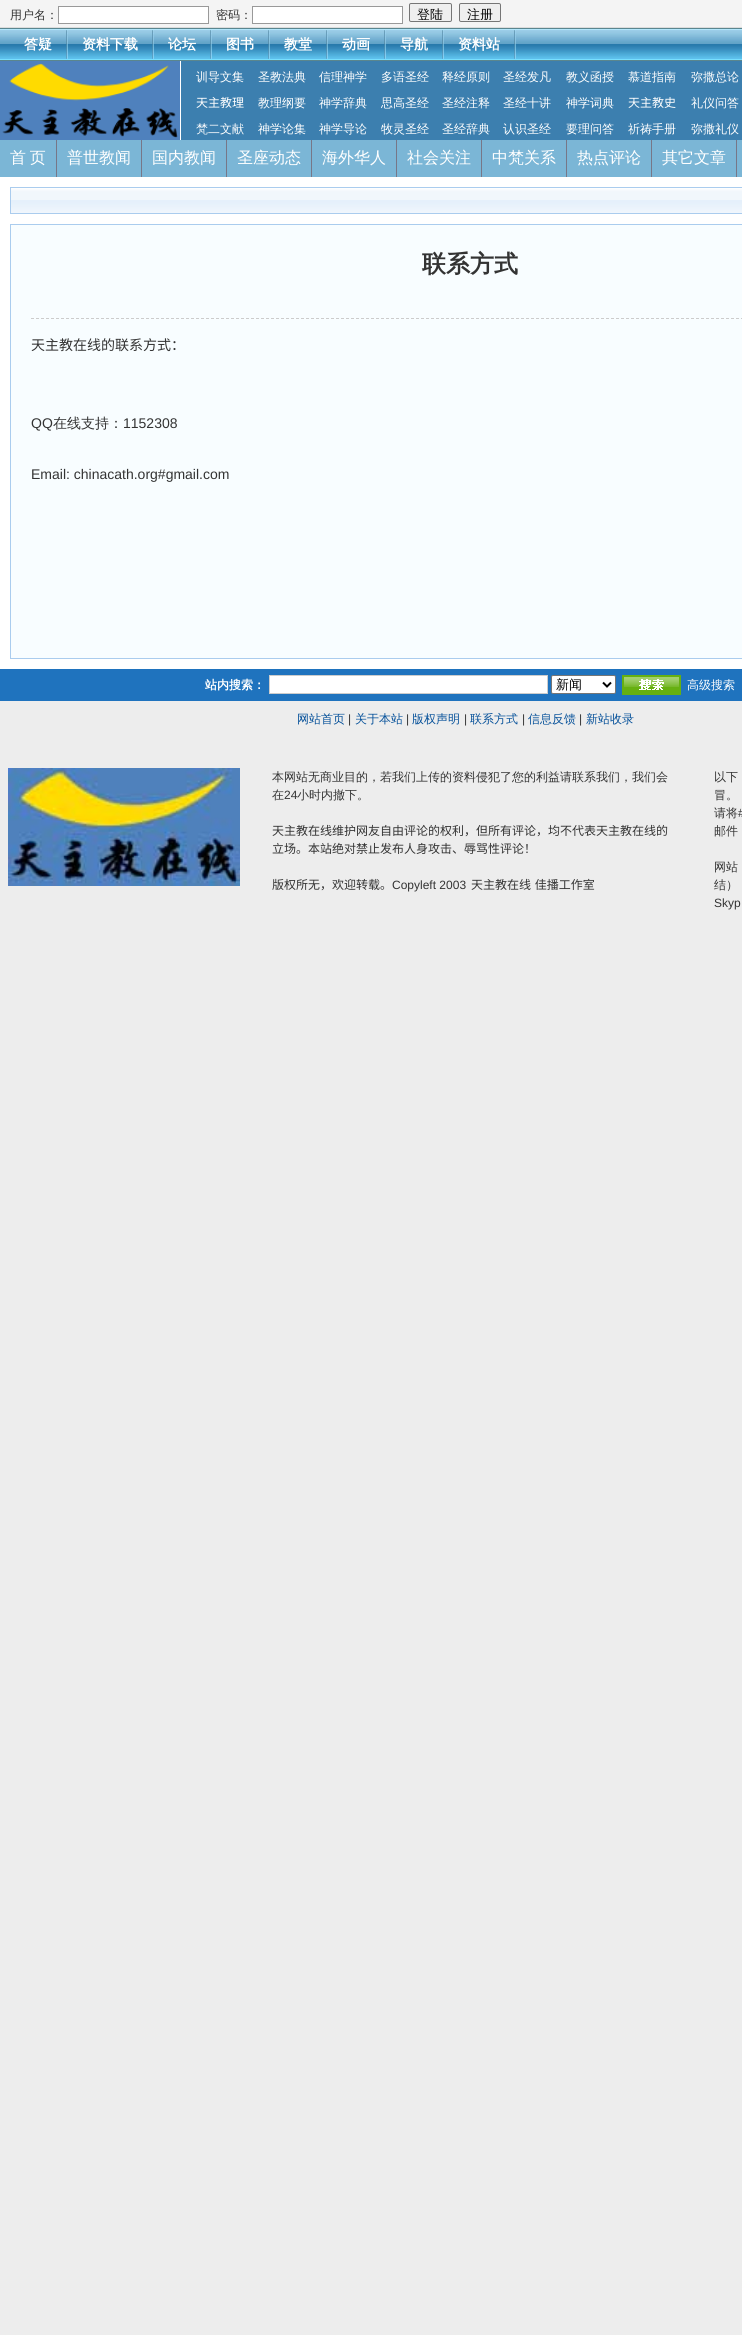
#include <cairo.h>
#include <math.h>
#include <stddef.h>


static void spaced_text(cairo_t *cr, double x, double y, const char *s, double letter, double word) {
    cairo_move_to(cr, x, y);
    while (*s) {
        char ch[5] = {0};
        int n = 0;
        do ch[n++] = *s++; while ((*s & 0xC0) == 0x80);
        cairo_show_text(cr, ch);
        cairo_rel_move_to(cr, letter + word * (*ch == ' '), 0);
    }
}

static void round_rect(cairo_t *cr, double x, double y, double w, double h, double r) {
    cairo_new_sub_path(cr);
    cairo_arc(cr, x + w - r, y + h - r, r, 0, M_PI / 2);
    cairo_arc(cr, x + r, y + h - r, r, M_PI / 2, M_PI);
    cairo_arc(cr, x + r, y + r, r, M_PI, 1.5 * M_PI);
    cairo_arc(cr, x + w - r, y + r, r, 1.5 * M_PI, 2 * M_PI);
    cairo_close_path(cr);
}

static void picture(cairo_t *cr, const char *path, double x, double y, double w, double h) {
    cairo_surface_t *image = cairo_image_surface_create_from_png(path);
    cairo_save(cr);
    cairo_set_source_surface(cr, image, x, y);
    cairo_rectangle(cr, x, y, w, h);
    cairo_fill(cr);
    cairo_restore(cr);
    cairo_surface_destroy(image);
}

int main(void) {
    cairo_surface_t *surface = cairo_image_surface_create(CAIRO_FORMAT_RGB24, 742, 2335);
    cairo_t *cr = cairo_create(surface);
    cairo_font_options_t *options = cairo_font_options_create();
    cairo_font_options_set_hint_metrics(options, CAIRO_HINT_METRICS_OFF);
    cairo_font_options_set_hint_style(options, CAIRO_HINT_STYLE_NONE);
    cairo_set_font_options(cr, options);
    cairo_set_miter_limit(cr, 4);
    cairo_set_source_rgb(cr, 0.929, 0.929, 0.929);
    cairo_paint(cr);
    cairo_set_source_rgb(cr, 1, 1, 1);
    cairo_rectangle(cr, 0, 61, 742, 608);
    cairo_fill(cr);
    cairo_set_source_rgb(cr, 0.863, 0.863, 0.863);
    cairo_rectangle(cr, 0, 27, 742, 1);
    cairo_fill(cr);
    cairo_set_source_rgb(cr, 0.957, 0.957, 0.957);
    cairo_rectangle(cr, 0, 0, 742, 27);
    cairo_fill(cr);
    cairo_select_font_face(cr, "WenQuanYi Zen Hei Medium", CAIRO_FONT_SLANT_NORMAL, CAIRO_FONT_WEIGHT_NORMAL);
    cairo_set_font_size(cr, 12);
    cairo_set_source_rgb(cr, 0.2, 0.2, 0.2);
    cairo_move_to(cr, 10, 19);
    cairo_show_text(cr, "用户名：");
    cairo_set_source_rgb(cr, 1, 1, 1);
    cairo_rectangle(cr, 58.5, 6.5, 150, 17);
    cairo_fill_preserve(cr);
    cairo_set_source_rgb(cr, 0.6, 0.6, 0.6);
    cairo_set_line_width(cr, 1);
    cairo_stroke(cr);
    cairo_set_source_rgb(cr, 0.2, 0.2, 0.2);
    cairo_move_to(cr, 216, 19);
    cairo_show_text(cr, "密码：");
    cairo_set_source_rgb(cr, 1, 1, 1);
    cairo_rectangle(cr, 252.5, 6.5, 150, 17);
    cairo_fill_preserve(cr);
    cairo_set_source_rgb(cr, 0.6, 0.6, 0.6);
    cairo_stroke(cr);
    cairo_set_source_rgb(cr, 0.937, 0.937, 0.937);
    round_rect(cr, 409.5, 3.5, 42, 18, 1.5);
    cairo_fill_preserve(cr);
    cairo_set_source_rgb(cr, 0.463, 0.463, 0.463);
    cairo_stroke(cr);
    cairo_save(cr);
    cairo_rectangle(cr, 411, 5, 39, 15);
    cairo_clip(cr);
    cairo_set_font_size(cr, 13);
    cairo_set_source_rgb(cr, 0, 0, 0);
    cairo_move_to(cr, 417, 19);
    cairo_show_text(cr, "登陆");
    cairo_restore(cr);
    cairo_set_source_rgb(cr, 0.937, 0.937, 0.937);
    round_rect(cr, 459.5, 3.5, 41, 18, 1.5);
    cairo_fill_preserve(cr);
    cairo_set_source_rgb(cr, 0.463, 0.463, 0.463);
    cairo_stroke(cr);
    cairo_save(cr);
    cairo_rectangle(cr, 461, 5, 38, 15);
    cairo_clip(cr);
    cairo_set_font_size(cr, 13);
    cairo_set_source_rgb(cr, 0, 0, 0);
    cairo_move_to(cr, 467, 19);
    cairo_show_text(cr, "注册");
    cairo_restore(cr);
    picture(cr, "img1.png", 0, 28, 742, 33);
    picture(cr, "img2.png", 66, 30, 2, 29);
    cairo_select_font_face(cr, "WenQuanYi Zen Hei", CAIRO_FONT_SLANT_NORMAL, CAIRO_FONT_WEIGHT_BOLD);
    cairo_set_font_size(cr, 14);
    cairo_set_source_rgb(cr, 1, 1, 1);
    cairo_move_to(cr, 24, 49);
    cairo_show_text(cr, "答疑");
    picture(cr, "img2.png", 152, 30, 2, 29);
    cairo_move_to(cr, 82, 49);
    cairo_show_text(cr, "资料下载");
    picture(cr, "img2.png", 210, 30, 2, 29);
    cairo_move_to(cr, 168, 49);
    cairo_show_text(cr, "论坛");
    picture(cr, "img2.png", 268, 30, 2, 29);
    cairo_move_to(cr, 226, 49);
    cairo_show_text(cr, "图书");
    picture(cr, "img2.png", 326, 30, 2, 29);
    cairo_move_to(cr, 284, 49);
    cairo_show_text(cr, "教堂");
    picture(cr, "img2.png", 384, 30, 2, 29);
    cairo_move_to(cr, 342, 49);
    cairo_show_text(cr, "动画");
    picture(cr, "img2.png", 442, 30, 2, 29);
    cairo_move_to(cr, 400, 49);
    cairo_show_text(cr, "导航");
    picture(cr, "img2.png", 514, 30, 2, 29);
    cairo_move_to(cr, 458, 49);
    cairo_show_text(cr, "资料站");
    picture(cr, "img3.png", 0, 61, 180, 79);
    cairo_set_source_rgb(cr, 0.235, 0.498, 0.686);
    cairo_rectangle(cr, 181, 61, 561, 79);
    cairo_fill(cr);
    cairo_select_font_face(cr, "WenQuanYi Zen Hei Medium", CAIRO_FONT_SLANT_NORMAL, CAIRO_FONT_WEIGHT_NORMAL);
    cairo_set_font_size(cr, 12);
    cairo_set_source_rgb(cr, 1, 1, 1);
    cairo_move_to(cr, 196, 81);
    cairo_show_text(cr, "训导文集");
    cairo_move_to(cr, 258, 81);
    cairo_show_text(cr, "圣教法典");
    cairo_move_to(cr, 319, 81);
    cairo_show_text(cr, "信理神学");
    cairo_move_to(cr, 381, 81);
    cairo_show_text(cr, "多语圣经");
    cairo_move_to(cr, 442, 81);
    cairo_show_text(cr, "释经原则");
    cairo_move_to(cr, 503, 81);
    cairo_show_text(cr, "圣经发凡");
    cairo_move_to(cr, 566, 81);
    cairo_show_text(cr, "教义函授");
    cairo_move_to(cr, 628, 81);
    cairo_show_text(cr, "慕道指南");
    cairo_move_to(cr, 691, 81);
    cairo_show_text(cr, "弥撒总论");
    cairo_select_font_face(cr, "Noto Sans CJK SC", CAIRO_FONT_SLANT_NORMAL, CAIRO_FONT_WEIGHT_NORMAL);
    cairo_move_to(cr, 196, 107);
    cairo_show_text(cr, "天主教理");
    cairo_select_font_face(cr, "WenQuanYi Zen Hei Medium", CAIRO_FONT_SLANT_NORMAL, CAIRO_FONT_WEIGHT_NORMAL);
    cairo_move_to(cr, 258, 107);
    cairo_show_text(cr, "教理纲要");
    cairo_move_to(cr, 319, 107);
    cairo_show_text(cr, "神学辞典");
    cairo_move_to(cr, 381, 107);
    cairo_show_text(cr, "思高圣经");
    cairo_move_to(cr, 442, 107);
    cairo_show_text(cr, "圣经注释");
    cairo_move_to(cr, 503, 107);
    cairo_show_text(cr, "圣经十讲");
    cairo_move_to(cr, 566, 107);
    cairo_show_text(cr, "神学词典");
    cairo_select_font_face(cr, "Noto Sans CJK SC", CAIRO_FONT_SLANT_NORMAL, CAIRO_FONT_WEIGHT_NORMAL);
    cairo_move_to(cr, 628, 107);
    cairo_show_text(cr, "天主教史");
    cairo_select_font_face(cr, "WenQuanYi Zen Hei Medium", CAIRO_FONT_SLANT_NORMAL, CAIRO_FONT_WEIGHT_NORMAL);
    cairo_move_to(cr, 691, 107);
    cairo_show_text(cr, "礼仪问答");
    cairo_move_to(cr, 196, 133);
    cairo_show_text(cr, "梵二文献");
    cairo_move_to(cr, 258, 133);
    cairo_show_text(cr, "神学论集");
    cairo_move_to(cr, 319, 133);
    cairo_show_text(cr, "神学导论");
    cairo_move_to(cr, 381, 133);
    cairo_show_text(cr, "牧灵圣经");
    cairo_move_to(cr, 442, 133);
    cairo_show_text(cr, "圣经辞典");
    cairo_move_to(cr, 503, 133);
    cairo_show_text(cr, "认识圣经");
    cairo_move_to(cr, 566, 133);
    cairo_show_text(cr, "要理问答");
    cairo_move_to(cr, 628, 133);
    cairo_show_text(cr, "祈祷手册");
    cairo_move_to(cr, 691, 133);
    cairo_show_text(cr, "弥撒礼仪");
    cairo_set_source_rgb(cr, 0.482, 0.714, 0.839);
    cairo_rectangle(cr, 0, 140, 56, 37);
    cairo_fill(cr);
    cairo_set_source_rgb(cr, 0.467, 0.467, 0.533);
    cairo_rectangle(cr, 56, 140, 1, 37);
    cairo_fill(cr);
    cairo_set_font_size(cr, 16);
    cairo_set_source_rgb(cr, 1, 1, 1);
    spaced_text(cr, 10, 163, "首 页", 0, -1);
    cairo_set_source_rgb(cr, 0.482, 0.714, 0.839);
    cairo_rectangle(cr, 57, 140, 84, 37);
    cairo_fill(cr);
    cairo_set_source_rgb(cr, 0.467, 0.467, 0.533);
    cairo_rectangle(cr, 141, 140, 1, 37);
    cairo_fill(cr);
    cairo_set_source_rgb(cr, 1, 1, 1);
    cairo_move_to(cr, 67, 163);
    cairo_show_text(cr, "普世教闻");
    cairo_set_source_rgb(cr, 0.482, 0.714, 0.839);
    cairo_rectangle(cr, 142, 140, 84, 37);
    cairo_fill(cr);
    cairo_set_source_rgb(cr, 0.467, 0.467, 0.533);
    cairo_rectangle(cr, 226, 140, 1, 37);
    cairo_fill(cr);
    cairo_set_source_rgb(cr, 1, 1, 1);
    cairo_move_to(cr, 152, 163);
    cairo_show_text(cr, "国内教闻");
    cairo_set_source_rgb(cr, 0.482, 0.714, 0.839);
    cairo_rectangle(cr, 227, 140, 84, 37);
    cairo_fill(cr);
    cairo_set_source_rgb(cr, 0.467, 0.467, 0.533);
    cairo_rectangle(cr, 311, 140, 1, 37);
    cairo_fill(cr);
    cairo_set_source_rgb(cr, 1, 1, 1);
    cairo_move_to(cr, 237, 163);
    cairo_show_text(cr, "圣座动态");
    cairo_set_source_rgb(cr, 0.482, 0.714, 0.839);
    cairo_rectangle(cr, 312, 140, 84, 37);
    cairo_fill(cr);
    cairo_set_source_rgb(cr, 0.467, 0.467, 0.533);
    cairo_rectangle(cr, 396, 140, 1, 37);
    cairo_fill(cr);
    cairo_set_source_rgb(cr, 1, 1, 1);
    cairo_move_to(cr, 322, 163);
    cairo_show_text(cr, "海外华人");
    cairo_set_source_rgb(cr, 0.482, 0.714, 0.839);
    cairo_rectangle(cr, 397, 140, 84, 37);
    cairo_fill(cr);
    cairo_set_source_rgb(cr, 0.467, 0.467, 0.533);
    cairo_rectangle(cr, 481, 140, 1, 37);
    cairo_fill(cr);
    cairo_set_source_rgb(cr, 1, 1, 1);
    cairo_move_to(cr, 407, 163);
    cairo_show_text(cr, "社会关注");
    cairo_set_source_rgb(cr, 0.482, 0.714, 0.839);
    cairo_rectangle(cr, 482, 140, 84, 37);
    cairo_fill(cr);
    cairo_set_source_rgb(cr, 0.467, 0.467, 0.533);
    cairo_rectangle(cr, 566, 140, 1, 37);
    cairo_fill(cr);
    cairo_set_source_rgb(cr, 1, 1, 1);
    cairo_move_to(cr, 492, 163);
    cairo_show_text(cr, "中梵关系");
    cairo_set_source_rgb(cr, 0.482, 0.714, 0.839);
    cairo_rectangle(cr, 567, 140, 84, 37);
    cairo_fill(cr);
    cairo_set_source_rgb(cr, 0.467, 0.467, 0.533);
    cairo_rectangle(cr, 651, 140, 1, 37);
    cairo_fill(cr);
    cairo_set_source_rgb(cr, 1, 1, 1);
    cairo_move_to(cr, 577, 163);
    cairo_show_text(cr, "热点评论");
    cairo_set_source_rgb(cr, 0.482, 0.714, 0.839);
    cairo_rectangle(cr, 652, 140, 84, 37);
    cairo_fill(cr);
    cairo_set_source_rgb(cr, 0.467, 0.467, 0.533);
    cairo_rectangle(cr, 736, 140, 1, 37);
    cairo_fill(cr);
    cairo_set_source_rgb(cr, 1, 1, 1);
    cairo_move_to(cr, 662, 163);
    cairo_show_text(cr, "其它文章");
    cairo_set_source_rgb(cr, 0.482, 0.714, 0.839);
    cairo_rectangle(cr, 737, 140, 5, 37);
    cairo_fill(cr);
    picture(cr, "img4.png", 11, 188, 731, 26);
    cairo_set_source_rgb(cr, 0.667, 0.8, 0.933);
    cairo_rectangle(cr, 10, 187, 732, 1);
    cairo_fill(cr);
    cairo_rectangle(cr, 10, 187, 1, 27);
    cairo_fill(cr);
    cairo_set_source_rgb(cr, 0.969, 0.992, 1);
    cairo_rectangle(cr, 10.5, 224.5, 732, 434);
    cairo_fill_preserve(cr);
    cairo_set_source_rgb(cr, 0.667, 0.8, 0.933);
    cairo_stroke(cr);
    cairo_select_font_face(cr, "WenQuanYi Zen Hei", CAIRO_FONT_SLANT_NORMAL, CAIRO_FONT_WEIGHT_BOLD);
    cairo_set_font_size(cr, 24);
    cairo_set_source_rgb(cr, 0.2, 0.2, 0.2);
    cairo_move_to(cr, 422, 272);
    cairo_show_text(cr, "联系方式");
    cairo_new_path(cr);
    cairo_move_to(cr, 31, 318.5);
    cairo_line_to(cr, 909, 318.5);
    cairo_set_source_rgb(cr, 0.8, 0.8, 0.8);
    cairo_set_dash(cr, (double[]){3, 2}, 2, 0);
    cairo_stroke(cr);
    cairo_select_font_face(cr, "Noto Sans CJK SC", CAIRO_FONT_SLANT_NORMAL, CAIRO_FONT_WEIGHT_NORMAL);
    cairo_set_font_size(cr, 14);
    cairo_set_source_rgb(cr, 0.2, 0.2, 0.2);
    cairo_move_to(cr, 31, 350);
    cairo_show_text(cr, "天主教在线的联系方式：");
    cairo_select_font_face(cr, "Liberation Sans", CAIRO_FONT_SLANT_NORMAL, CAIRO_FONT_WEIGHT_NORMAL);
    cairo_move_to(cr, 31, 428);
    cairo_show_text(cr, "QQ");
    cairo_select_font_face(cr, "WenQuanYi Zen Hei Medium", CAIRO_FONT_SLANT_NORMAL, CAIRO_FONT_WEIGHT_NORMAL);
    cairo_move_to(cr, 53, 428);
    cairo_show_text(cr, "在线支持：");
    cairo_select_font_face(cr, "Liberation Sans", CAIRO_FONT_SLANT_NORMAL, CAIRO_FONT_WEIGHT_NORMAL);
    cairo_move_to(cr, 123, 428);
    cairo_show_text(cr, "1152308");
    cairo_move_to(cr, 31, 479);
    cairo_show_text(cr, "Email: chinacath.org#gmail.com");
    cairo_set_source_rgb(cr, 0.122, 0.451, 0.745);
    cairo_rectangle(cr, 0, 669, 742, 32);
    cairo_fill(cr);
    cairo_select_font_face(cr, "WenQuanYi Zen Hei", CAIRO_FONT_SLANT_NORMAL, CAIRO_FONT_WEIGHT_BOLD);
    cairo_set_font_size(cr, 12);
    cairo_set_source_rgb(cr, 1, 1, 1);
    cairo_move_to(cr, 205, 689);
    cairo_show_text(cr, "站内搜索：");
    cairo_rectangle(cr, 269.5, 675.5, 278, 18);
    cairo_fill_preserve(cr);
    cairo_set_source_rgb(cr, 0.8, 0.8, 0.8);
    cairo_set_dash(cr, NULL, 0, 0);
    cairo_stroke(cr);
    cairo_set_source_rgb(cr, 1, 1, 1);
    round_rect(cr, 551.5, 675.5, 64, 18, 1.5);
    cairo_fill_preserve(cr);
    cairo_set_source_rgb(cr, 0.463, 0.463, 0.463);
    cairo_stroke(cr);
    cairo_new_path(cr);
    cairo_move_to(cr, 603, 682.5);
    cairo_line_to(cr, 607, 686.5);
    cairo_line_to(cr, 611, 682.5);
    cairo_set_source_rgb(cr, 0, 0, 0);
    cairo_set_line_width(cr, 2);
    cairo_stroke(cr);
    cairo_select_font_face(cr, "WenQuanYi Zen Hei Medium", CAIRO_FONT_SLANT_NORMAL, CAIRO_FONT_WEIGHT_NORMAL);
    cairo_set_font_size(cr, 13);
    cairo_move_to(cr, 556, 689);
    cairo_show_text(cr, "新闻");
    picture(cr, "img5.png", 622, 675, 59, 20);
    cairo_set_font_size(cr, 12);
    cairo_set_source_rgb(cr, 1, 1, 1);
    cairo_move_to(cr, 687, 689);
    cairo_show_text(cr, "高级搜索");
    cairo_set_source_rgb(cr, 0.027, 0.318, 0.604);
    cairo_move_to(cr, 297, 723);
    cairo_show_text(cr, "网站首页");
    cairo_select_font_face(cr, "Liberation Sans", CAIRO_FONT_SLANT_NORMAL, CAIRO_FONT_WEIGHT_NORMAL);
    cairo_set_source_rgb(cr, 0.2, 0.2, 0.2);
    cairo_move_to(cr, 348, 723);
    cairo_show_text(cr, "|");
    cairo_select_font_face(cr, "WenQuanYi Zen Hei Medium", CAIRO_FONT_SLANT_NORMAL, CAIRO_FONT_WEIGHT_NORMAL);
    cairo_set_source_rgb(cr, 0.027, 0.318, 0.604);
    cairo_move_to(cr, 355, 723);
    cairo_show_text(cr, "关于本站");
    cairo_select_font_face(cr, "Liberation Sans", CAIRO_FONT_SLANT_NORMAL, CAIRO_FONT_WEIGHT_NORMAL);
    cairo_set_source_rgb(cr, 0.2, 0.2, 0.2);
    cairo_move_to(cr, 406, 723);
    cairo_show_text(cr, "|");
    cairo_select_font_face(cr, "WenQuanYi Zen Hei Medium", CAIRO_FONT_SLANT_NORMAL, CAIRO_FONT_WEIGHT_NORMAL);
    cairo_set_source_rgb(cr, 0.027, 0.318, 0.604);
    cairo_move_to(cr, 412, 723);
    cairo_show_text(cr, "版权声明");
    cairo_select_font_face(cr, "Liberation Sans", CAIRO_FONT_SLANT_NORMAL, CAIRO_FONT_WEIGHT_NORMAL);
    cairo_set_source_rgb(cr, 0.2, 0.2, 0.2);
    cairo_move_to(cr, 464, 723);
    cairo_show_text(cr, "|");
    cairo_select_font_face(cr, "WenQuanYi Zen Hei Medium", CAIRO_FONT_SLANT_NORMAL, CAIRO_FONT_WEIGHT_NORMAL);
    cairo_set_source_rgb(cr, 0.027, 0.318, 0.604);
    cairo_move_to(cr, 470, 723);
    cairo_show_text(cr, "联系方式");
    cairo_select_font_face(cr, "Liberation Sans", CAIRO_FONT_SLANT_NORMAL, CAIRO_FONT_WEIGHT_NORMAL);
    cairo_set_source_rgb(cr, 0.2, 0.2, 0.2);
    cairo_move_to(cr, 522, 723);
    cairo_show_text(cr, "|");
    cairo_select_font_face(cr, "WenQuanYi Zen Hei Medium", CAIRO_FONT_SLANT_NORMAL, CAIRO_FONT_WEIGHT_NORMAL);
    cairo_set_source_rgb(cr, 0.027, 0.318, 0.604);
    cairo_move_to(cr, 528, 723);
    cairo_show_text(cr, "信息反馈");
    cairo_select_font_face(cr, "Liberation Sans", CAIRO_FONT_SLANT_NORMAL, CAIRO_FONT_WEIGHT_NORMAL);
    cairo_set_source_rgb(cr, 0.2, 0.2, 0.2);
    cairo_move_to(cr, 579, 723);
    cairo_show_text(cr, "|");
    cairo_select_font_face(cr, "WenQuanYi Zen Hei Medium", CAIRO_FONT_SLANT_NORMAL, CAIRO_FONT_WEIGHT_NORMAL);
    cairo_set_source_rgb(cr, 0.027, 0.318, 0.604);
    cairo_move_to(cr, 586, 723);
    cairo_show_text(cr, "新站收录");
    picture(cr, "img6.png", 8, 768, 232, 118);
    cairo_set_source_rgb(cr, 0.2, 0.2, 0.2);
    cairo_move_to(cr, 272, 781);
    cairo_show_text(cr, "本网站无商业目的，若我们上传的资料侵犯了您的利益请联系我们，我们会");
    cairo_move_to(cr, 272, 799);
    cairo_show_text(cr, "在");
    cairo_select_font_face(cr, "Liberation Sans", CAIRO_FONT_SLANT_NORMAL, CAIRO_FONT_WEIGHT_NORMAL);
    cairo_move_to(cr, 284, 799);
    cairo_show_text(cr, "24");
    cairo_select_font_face(cr, "WenQuanYi Zen Hei Medium", CAIRO_FONT_SLANT_NORMAL, CAIRO_FONT_WEIGHT_NORMAL);
    cairo_move_to(cr, 297, 799);
    cairo_show_text(cr, "小时内撤下。");
    cairo_select_font_face(cr, "Noto Sans CJK SC", CAIRO_FONT_SLANT_NORMAL, CAIRO_FONT_WEIGHT_NORMAL);
    cairo_move_to(cr, 272, 835);
    cairo_show_text(cr, "天主教在线维护网友自由评论的权利，但所有评论，均不代表天主教在线的");
    cairo_move_to(cr, 272, 853);
    cairo_show_text(cr, "立场。本站绝对禁止发布人身攻击、辱骂性评论！");
    cairo_move_to(cr, 272, 889);
    cairo_show_text(cr, "版权所无，欢迎转载。");
    cairo_select_font_face(cr, "Liberation Sans", CAIRO_FONT_SLANT_NORMAL, CAIRO_FONT_WEIGHT_NORMAL);
    cairo_move_to(cr, 392, 889);
    cairo_show_text(cr, "Copyleft 2003");
    cairo_select_font_face(cr, "Noto Sans CJK SC", CAIRO_FONT_SLANT_NORMAL, CAIRO_FONT_WEIGHT_NORMAL);
    spaced_text(cr, 471, 889, "天主教在线 佳播工作室", 0, 1);
    cairo_select_font_face(cr, "WenQuanYi Zen Hei Medium", CAIRO_FONT_SLANT_NORMAL, CAIRO_FONT_WEIGHT_NORMAL);
    cairo_move_to(cr, 714, 781);
    cairo_show_text(cr, "以下");
    cairo_move_to(cr, 714, 799);
    cairo_show_text(cr, "冒。");
    cairo_move_to(cr, 714, 817);
    cairo_show_text(cr, "请将");
    cairo_select_font_face(cr, "Liberation Sans", CAIRO_FONT_SLANT_NORMAL, CAIRO_FONT_WEIGHT_NORMAL);
    cairo_move_to(cr, 738, 817);
    cairo_show_text(cr, "#");
    cairo_select_font_face(cr, "WenQuanYi Zen Hei Medium", CAIRO_FONT_SLANT_NORMAL, CAIRO_FONT_WEIGHT_NORMAL);
    cairo_move_to(cr, 714, 835);
    cairo_show_text(cr, "邮件");
    cairo_move_to(cr, 714, 871);
    cairo_show_text(cr, "网站");
    cairo_move_to(cr, 714, 889);
    cairo_show_text(cr, "结）");
    cairo_select_font_face(cr, "Liberation Sans", CAIRO_FONT_SLANT_NORMAL, CAIRO_FONT_WEIGHT_NORMAL);
    cairo_move_to(cr, 714, 907);
    cairo_show_text(cr, "Skyp");
    cairo_surface_write_to_png(surface, "page.png");
    cairo_font_options_destroy(options);
    cairo_destroy(cr);
    cairo_surface_destroy(surface);
    return 0;
}
